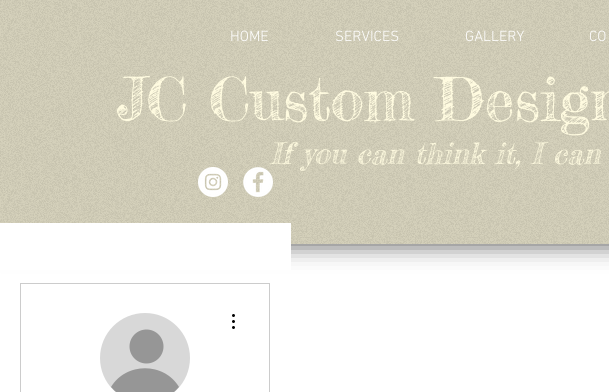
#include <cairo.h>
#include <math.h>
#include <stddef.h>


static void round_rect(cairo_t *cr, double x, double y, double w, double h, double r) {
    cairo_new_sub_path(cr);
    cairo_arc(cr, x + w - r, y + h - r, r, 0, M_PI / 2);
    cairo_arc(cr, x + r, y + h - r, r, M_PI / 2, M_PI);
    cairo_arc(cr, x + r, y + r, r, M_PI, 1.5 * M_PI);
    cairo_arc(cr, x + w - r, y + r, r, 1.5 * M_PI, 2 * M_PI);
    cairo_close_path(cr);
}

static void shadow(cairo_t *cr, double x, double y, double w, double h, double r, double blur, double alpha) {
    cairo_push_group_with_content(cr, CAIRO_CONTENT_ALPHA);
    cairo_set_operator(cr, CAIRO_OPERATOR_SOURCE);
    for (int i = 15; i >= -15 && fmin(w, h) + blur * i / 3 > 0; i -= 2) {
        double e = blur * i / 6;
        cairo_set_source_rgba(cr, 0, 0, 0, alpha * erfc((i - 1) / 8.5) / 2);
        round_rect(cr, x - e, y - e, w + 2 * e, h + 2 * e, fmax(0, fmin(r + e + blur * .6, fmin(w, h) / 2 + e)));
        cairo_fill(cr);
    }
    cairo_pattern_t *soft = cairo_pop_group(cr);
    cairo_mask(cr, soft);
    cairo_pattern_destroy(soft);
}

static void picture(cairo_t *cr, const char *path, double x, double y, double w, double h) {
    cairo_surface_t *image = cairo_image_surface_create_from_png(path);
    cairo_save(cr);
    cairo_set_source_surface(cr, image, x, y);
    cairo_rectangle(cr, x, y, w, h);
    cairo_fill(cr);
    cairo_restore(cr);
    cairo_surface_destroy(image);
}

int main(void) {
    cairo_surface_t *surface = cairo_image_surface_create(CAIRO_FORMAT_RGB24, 609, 392);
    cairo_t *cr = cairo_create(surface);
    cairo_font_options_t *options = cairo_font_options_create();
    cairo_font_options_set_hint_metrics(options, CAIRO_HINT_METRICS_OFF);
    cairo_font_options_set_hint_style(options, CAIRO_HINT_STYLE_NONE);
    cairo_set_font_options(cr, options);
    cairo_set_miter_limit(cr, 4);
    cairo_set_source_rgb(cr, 1, 1, 1);
    cairo_paint(cr);
    cairo_set_source_rgb(cr, 0, 0, 0);
    shadow(cr, 0, 0, 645, 244, 0, 12, 0.7);
    cairo_set_source_rgb(cr, 0.831, 0.816, 0.729);
    cairo_rectangle(cr, 0, 0, 609, 244);
    cairo_fill(cr);
    picture(cr, "img1.png", 0, 0, 609, 244);
    cairo_select_font_face(cr, "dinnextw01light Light", CAIRO_FONT_SLANT_NORMAL, CAIRO_FONT_WEIGHT_NORMAL);
    cairo_set_font_size(cr, 15);
    cairo_set_source_rgb(cr, 1, 1, 1);
    cairo_move_to(cr, 230, 41);
    cairo_show_text(cr, "HOME");
    cairo_move_to(cr, 335, 41);
    cairo_show_text(cr, "SERVICES");
    cairo_move_to(cr, 465, 41);
    cairo_show_text(cr, "GALLERY");
    cairo_move_to(cr, 589, 41);
    cairo_show_text(cr, "CO");
    cairo_select_font_face(cr, "Fredericka the Great", CAIRO_FONT_SLANT_NORMAL, CAIRO_FONT_WEIGHT_NORMAL);
    cairo_set_font_size(cr, 60);
    cairo_set_source_rgb(cr, 1, 0.984, 0.878);
    cairo_move_to(cr, 117, 121);
    cairo_show_text(cr, "JC Custom Design");
    picture(cr, "img3.png", 243, 167, 30, 30);
    cairo_select_font_face(cr, "Fredericka the Great", CAIRO_FONT_SLANT_ITALIC, CAIRO_FONT_WEIGHT_NORMAL);
    cairo_set_font_size(cr, 29);
    cairo_move_to(cr, 270, 164);
    cairo_show_text(cr, "If you can think it, I can");
    picture(cr, "img2.png", 198, 167, 30, 30);
    cairo_set_source_rgb(cr, 1, 1, 1);
    cairo_rectangle(cr, 0, 223, 291, 47);
    cairo_fill(cr);
    cairo_rectangle(cr, 20.5, 283.5, 249, 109);
    cairo_set_source_rgb(cr, 0.8, 0.8, 0.8);
    cairo_set_line_width(cr, 1);
    cairo_stroke(cr);
    cairo_set_source_rgb(cr, 0.847, 0.847, 0.847);
    cairo_arc(cr, 145, 358, 45, 0, 2 * M_PI);
    cairo_fill(cr);
    cairo_set_source_rgb(cr, 0.588, 0.588, 0.588);
    cairo_arc(cr, 146.5, 346.5, 17, 0, 2 * M_PI);
    cairo_fill(cr);
    cairo_new_path(cr);
    cairo_move_to(cr, 179, 387);
    cairo_curve_to(cr, 161, 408, 129, 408, 111, 387);
    cairo_curve_to(cr, 126, 362, 164, 362, 179, 387);
    cairo_close_path(cr);
    cairo_fill(cr);
    picture(cr, "img4.png", 232, 314, 3, 15);
    cairo_surface_write_to_png(surface, "page.png");
    cairo_font_options_destroy(options);
    cairo_destroy(cr);
    cairo_surface_destroy(surface);
    return 0;
}
